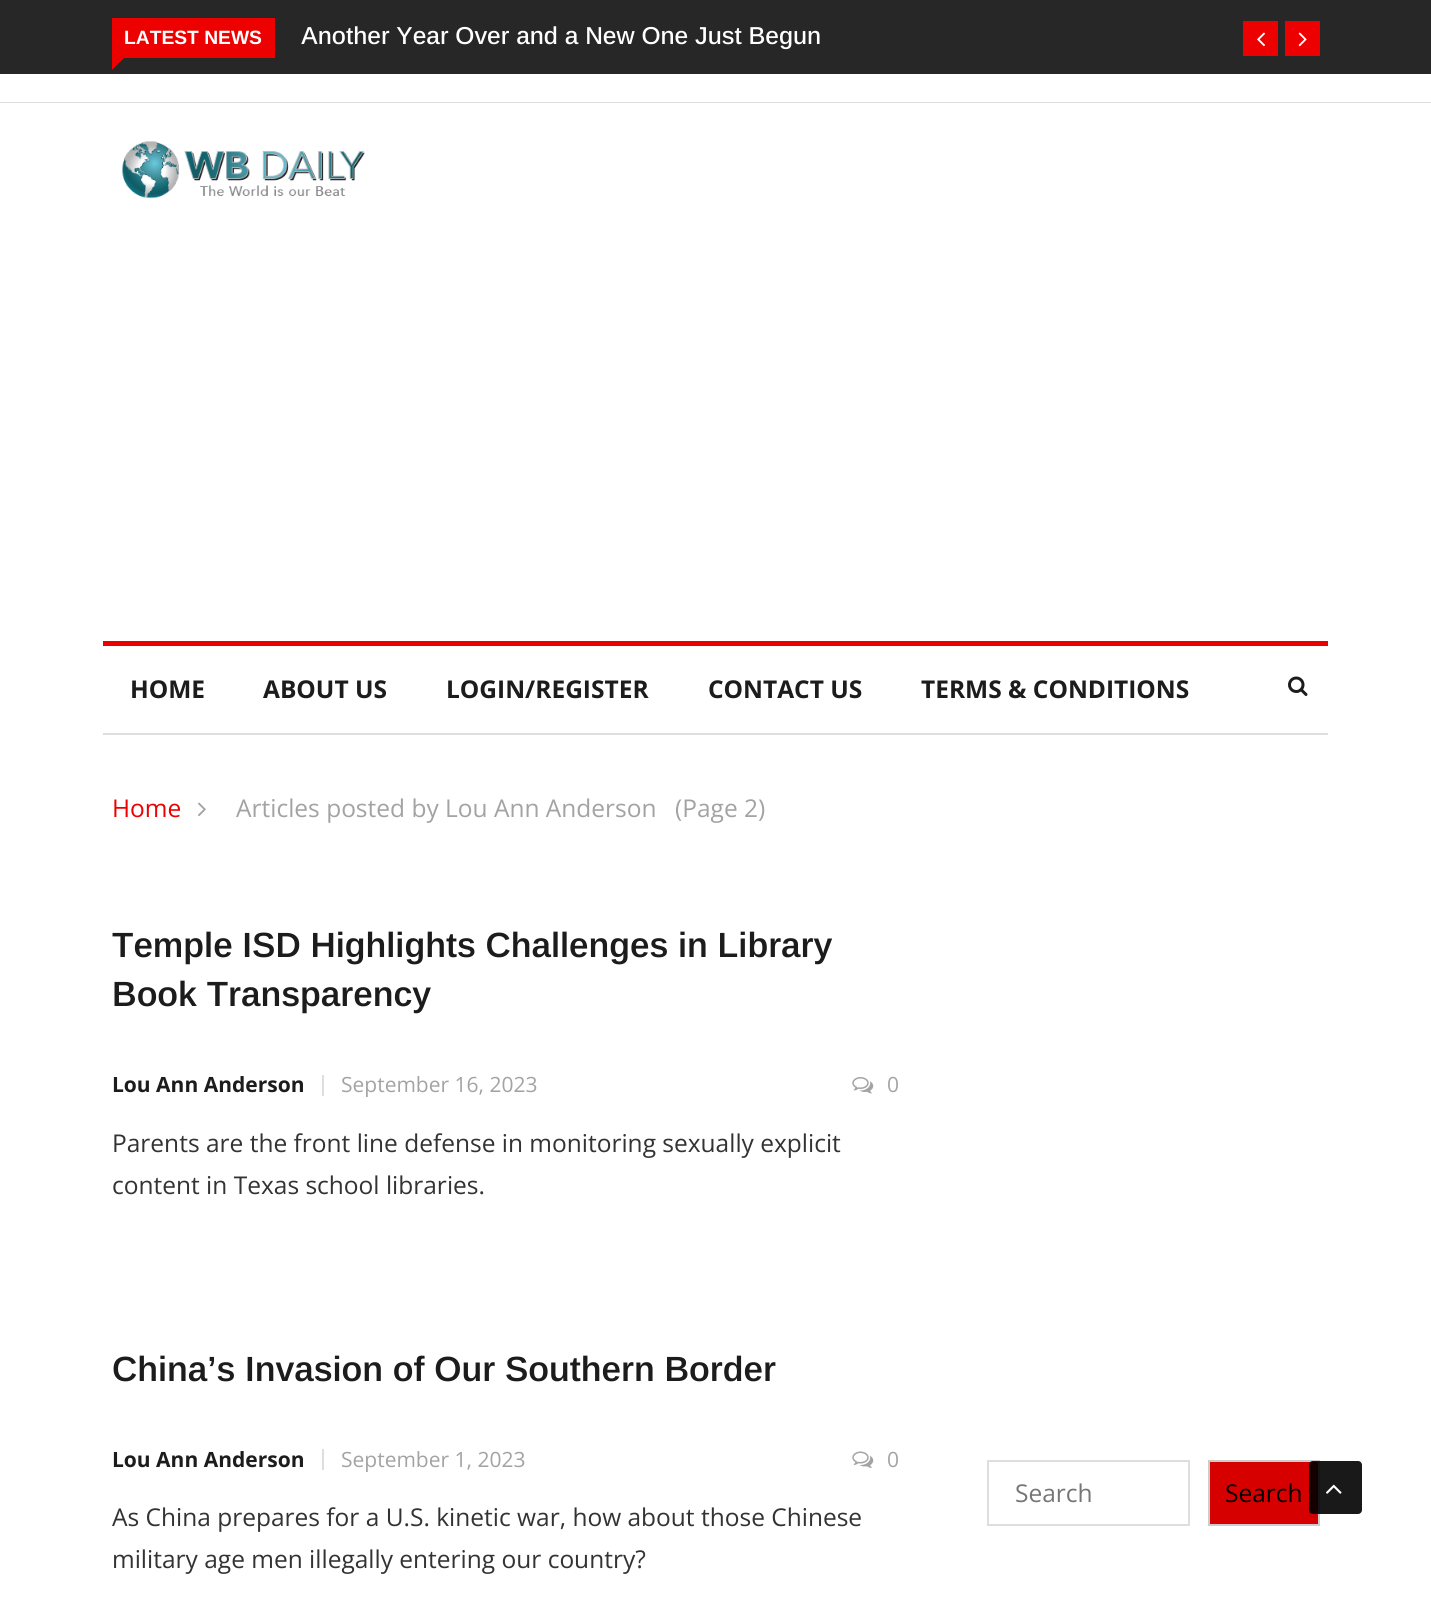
#include <cairo.h>
#include <math.h>
#include <stddef.h>


static void round_rect(cairo_t *cr, double x, double y, double w, double h, double r) {
    cairo_new_sub_path(cr);
    cairo_arc(cr, x + w - r, y + h - r, r, 0, M_PI / 2);
    cairo_arc(cr, x + r, y + h - r, r, M_PI / 2, M_PI);
    cairo_arc(cr, x + r, y + r, r, M_PI, 1.5 * M_PI);
    cairo_arc(cr, x + w - r, y + r, r, 1.5 * M_PI, 2 * M_PI);
    cairo_close_path(cr);
}

static void picture(cairo_t *cr, const char *path, double x, double y, double w, double h) {
    cairo_surface_t *image = cairo_image_surface_create_from_png(path);
    cairo_save(cr);
    cairo_set_source_surface(cr, image, x, y);
    cairo_rectangle(cr, x, y, w, h);
    cairo_fill(cr);
    cairo_restore(cr);
    cairo_surface_destroy(image);
}

int main(void) {
    cairo_surface_t *surface = cairo_image_surface_create(CAIRO_FORMAT_RGB24, 1431, 1608);
    cairo_t *cr = cairo_create(surface);
    cairo_font_options_t *options = cairo_font_options_create();
    cairo_font_options_set_hint_metrics(options, CAIRO_HINT_METRICS_OFF);
    cairo_font_options_set_hint_style(options, CAIRO_HINT_STYLE_NONE);
    cairo_set_font_options(cr, options);
    cairo_set_miter_limit(cr, 4);
    cairo_set_source_rgb(cr, 1, 1, 1);
    cairo_paint(cr);
    cairo_set_source_rgb(cr, 0.153, 0.153, 0.153);
    cairo_rectangle(cr, 0, 0, 1431, 74);
    cairo_fill(cr);
    cairo_set_source_rgb(cr, 0.925, 0, 0);
    cairo_rectangle(cr, 112, 18, 163, 40);
    cairo_fill(cr);
    cairo_select_font_face(cr, "Arimo", CAIRO_FONT_SLANT_NORMAL, CAIRO_FONT_WEIGHT_BOLD);
    cairo_set_font_size(cr, 19.25);
    cairo_set_source_rgb(cr, 1, 1, 1);
    cairo_move_to(cr, 124, 44);
    cairo_show_text(cr, "LATEST NEWS");
    cairo_set_source_rgb(cr, 0.925, 0, 0);
    cairo_new_path(cr);
    cairo_move_to(cr, 112, 58);
    cairo_line_to(cr, 124, 58);
    cairo_line_to(cr, 112, 70);
    cairo_close_path(cr);
    cairo_fill(cr);
    cairo_select_font_face(cr, "Arimo Medium", CAIRO_FONT_SLANT_NORMAL, CAIRO_FONT_WEIGHT_NORMAL);
    cairo_set_font_size(cr, 24.5);
    cairo_set_source_rgb(cr, 1, 1, 1);
    cairo_move_to(cr, 301, 44);
    cairo_show_text(cr, "Another Year Over and a New One Just Begun");
    cairo_set_source_rgb(cr, 0.925, 0, 0);
    cairo_rectangle(cr, 1243, 21, 35, 35);
    cairo_fill(cr);
    picture(cr, "img1.png", 1257, 32, 8, 15);
    cairo_rectangle(cr, 1285, 21, 35, 35);
    cairo_fill(cr);
    picture(cr, "img2.png", 1298, 32, 9, 15);
    cairo_set_source_rgb(cr, 0.871, 0.871, 0.871);
    cairo_rectangle(cr, 0, 102, 1431, 1);
    cairo_fill(cr);
    picture(cr, "img3.png", 122, 141, 243, 58);
    cairo_set_source_rgb(cr, 0.925, 0, 0);
    cairo_rectangle(cr, 103, 641, 1225, 5);
    cairo_fill(cr);
    cairo_set_source_rgb(cr, 0.871, 0.871, 0.871);
    cairo_rectangle(cr, 103, 733, 1225, 2);
    cairo_fill(cr);
    cairo_select_font_face(cr, "Open Sans", CAIRO_FONT_SLANT_NORMAL, CAIRO_FONT_WEIGHT_BOLD);
    cairo_set_source_rgb(cr, 0.11, 0.11, 0.11);
    cairo_move_to(cr, 130, 698);
    cairo_show_text(cr, "HOME");
    cairo_move_to(cr, 263, 698);
    cairo_show_text(cr, "ABOUT US");
    cairo_move_to(cr, 446, 698);
    cairo_show_text(cr, "LOGIN/REGISTER");
    cairo_move_to(cr, 708, 698);
    cairo_show_text(cr, "CONTACT US");
    cairo_move_to(cr, 921, 698);
    cairo_show_text(cr, "TERMS & CONDITIONS");
    picture(cr, "img4.png", 1288, 676, 20, 20);
    cairo_select_font_face(cr, "Open Sans", CAIRO_FONT_SLANT_NORMAL, CAIRO_FONT_WEIGHT_NORMAL);
    cairo_set_source_rgb(cr, 0.925, 0, 0);
    cairo_move_to(cr, 112, 817);
    cairo_show_text(cr, "Home");
    picture(cr, "img5.png", 198, 802, 8, 15);
    cairo_set_source_rgb(cr, 0.639, 0.639, 0.639);
    cairo_move_to(cr, 236, 817);
    cairo_show_text(cr, "Articles posted by Lou Ann Anderson");
    cairo_move_to(cr, 675, 817);
    cairo_show_text(cr, "(Page 2)");
    cairo_select_font_face(cr, "Arimo SemiBold", CAIRO_FONT_SLANT_NORMAL, CAIRO_FONT_WEIGHT_NORMAL);
    cairo_set_font_size(cr, 35);
    cairo_set_source_rgb(cr, 0.11, 0.11, 0.11);
    cairo_move_to(cr, 112, 957);
    cairo_show_text(cr, "Temple ISD Highlights Challenges in Library");
    cairo_move_to(cr, 112, 1006);
    cairo_show_text(cr, "Book Transparency");
    cairo_set_source_rgb(cr, 0.871, 0.871, 0.871);
    cairo_rectangle(cr, 322, 1075, 2, 21);
    cairo_fill(cr);
    cairo_select_font_face(cr, "Open Sans", CAIRO_FONT_SLANT_NORMAL, CAIRO_FONT_WEIGHT_BOLD);
    cairo_set_font_size(cr, 21);
    cairo_set_source_rgb(cr, 0.11, 0.11, 0.11);
    cairo_move_to(cr, 112, 1092);
    cairo_show_text(cr, "Lou Ann Anderson");
    cairo_select_font_face(cr, "Open Sans", CAIRO_FONT_SLANT_NORMAL, CAIRO_FONT_WEIGHT_NORMAL);
    cairo_set_source_rgb(cr, 0.639, 0.639, 0.639);
    cairo_move_to(cr, 341, 1092);
    cairo_show_text(cr, "September 16, 2023");
    picture(cr, "img6.png", 852, 1077, 22, 17);
    cairo_move_to(cr, 887, 1092);
    cairo_show_text(cr, "0");
    cairo_set_font_size(cr, 24.5);
    cairo_set_source_rgb(cr, 0.2, 0.2, 0.2);
    cairo_move_to(cr, 112, 1152);
    cairo_show_text(cr, "Parents are the front line defense in monitoring sexually explicit");
    cairo_move_to(cr, 112, 1194);
    cairo_show_text(cr, "content in Texas school libraries.");
    cairo_select_font_face(cr, "Arimo SemiBold", CAIRO_FONT_SLANT_NORMAL, CAIRO_FONT_WEIGHT_NORMAL);
    cairo_set_font_size(cr, 35);
    cairo_set_source_rgb(cr, 0.11, 0.11, 0.11);
    cairo_move_to(cr, 112, 1381);
    cairo_show_text(cr, "China’s Invasion of Our Southern Border");
    cairo_set_source_rgb(cr, 0.871, 0.871, 0.871);
    cairo_rectangle(cr, 322, 1449, 2, 21);
    cairo_fill(cr);
    cairo_select_font_face(cr, "Open Sans", CAIRO_FONT_SLANT_NORMAL, CAIRO_FONT_WEIGHT_BOLD);
    cairo_set_font_size(cr, 21);
    cairo_set_source_rgb(cr, 0.11, 0.11, 0.11);
    cairo_move_to(cr, 112, 1467);
    cairo_show_text(cr, "Lou Ann Anderson");
    cairo_select_font_face(cr, "Open Sans", CAIRO_FONT_SLANT_NORMAL, CAIRO_FONT_WEIGHT_NORMAL);
    cairo_set_source_rgb(cr, 0.639, 0.639, 0.639);
    cairo_move_to(cr, 341, 1467);
    cairo_show_text(cr, "September 1, 2023");
    picture(cr, "img7.png", 852, 1451, 22, 17);
    cairo_move_to(cr, 887, 1467);
    cairo_show_text(cr, "0");
    cairo_set_font_size(cr, 24.5);
    cairo_set_source_rgb(cr, 0.2, 0.2, 0.2);
    cairo_move_to(cr, 112, 1526);
    cairo_show_text(cr, "As China prepares for a U.S. kinetic war, how about those Chinese");
    cairo_move_to(cr, 112, 1568);
    cairo_show_text(cr, "military age men illegally entering our country?");
    cairo_rectangle(cr, 988, 1461, 201, 64);
    cairo_set_source_rgb(cr, 0.871, 0.871, 0.871);
    cairo_stroke(cr);
    cairo_set_source_rgb(cr, 0.459, 0.459, 0.459);
    cairo_move_to(cr, 1015, 1502);
    cairo_show_text(cr, "Search");
    cairo_set_source_rgb(cr, 0.843, 0, 0);
    cairo_rectangle(cr, 1209, 1461, 110, 64);
    cairo_fill_preserve(cr);
    cairo_set_source_rgb(cr, 0.8, 0.8, 0.8);
    cairo_stroke(cr);
    cairo_set_source_rgb(cr, 0, 0, 0);
    cairo_move_to(cr, 1225, 1502);
    cairo_show_text(cr, "Search");
    cairo_set_source_rgba(cr, 0, 0, 0, 0.9);
    round_rect(cr, 1309, 1461, 53, 53, 4);
    cairo_fill(cr);
    picture(cr, "img8.png", 1326, 1484, 16, 10);
    cairo_surface_write_to_png(surface, "page.png");
    cairo_font_options_destroy(options);
    cairo_destroy(cr);
    cairo_surface_destroy(surface);
    return 0;
}
